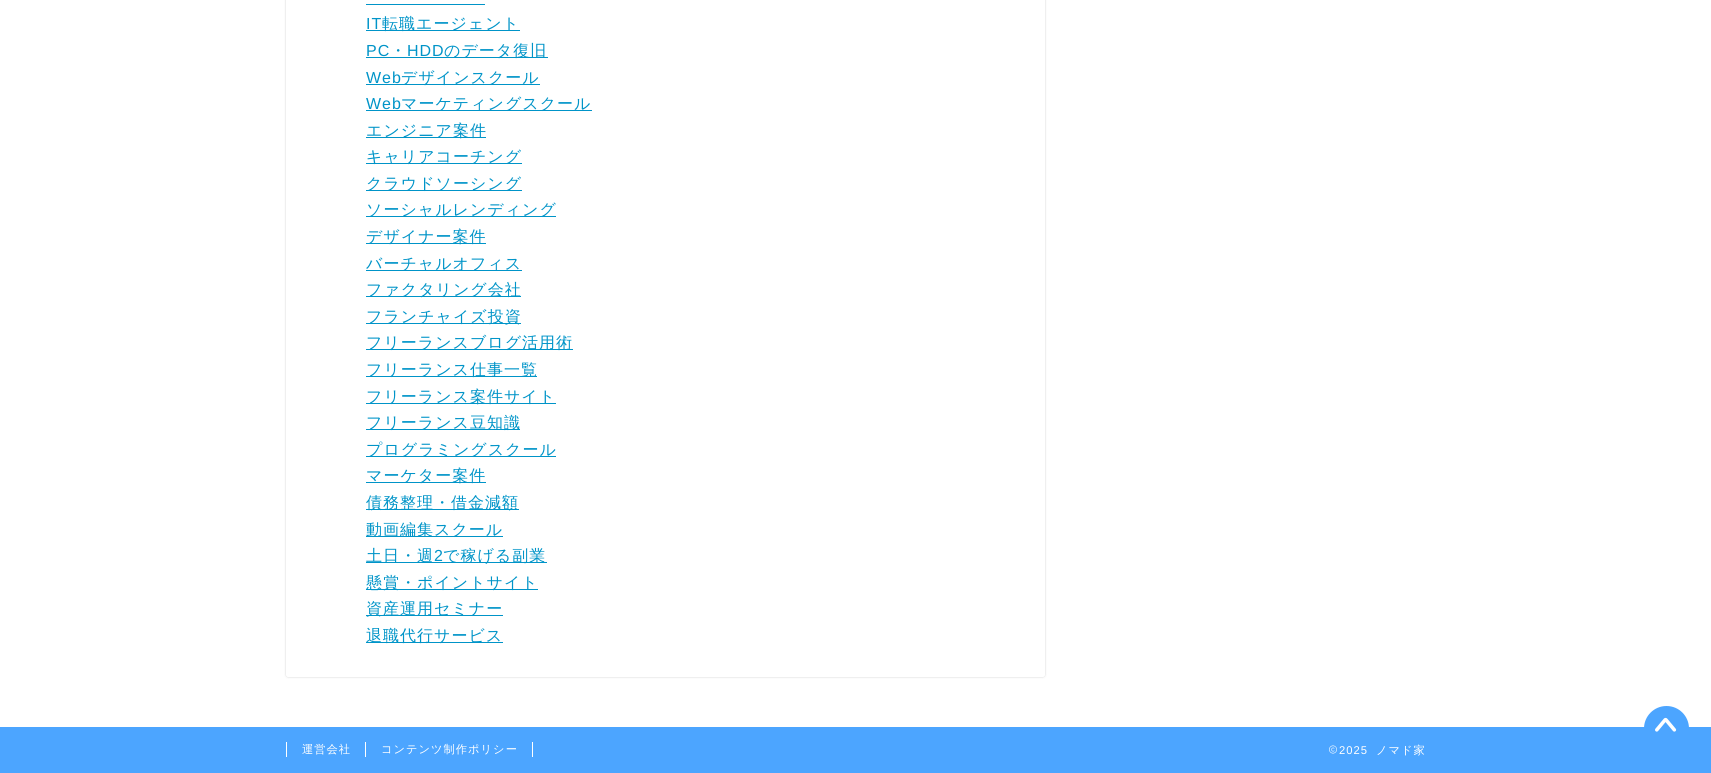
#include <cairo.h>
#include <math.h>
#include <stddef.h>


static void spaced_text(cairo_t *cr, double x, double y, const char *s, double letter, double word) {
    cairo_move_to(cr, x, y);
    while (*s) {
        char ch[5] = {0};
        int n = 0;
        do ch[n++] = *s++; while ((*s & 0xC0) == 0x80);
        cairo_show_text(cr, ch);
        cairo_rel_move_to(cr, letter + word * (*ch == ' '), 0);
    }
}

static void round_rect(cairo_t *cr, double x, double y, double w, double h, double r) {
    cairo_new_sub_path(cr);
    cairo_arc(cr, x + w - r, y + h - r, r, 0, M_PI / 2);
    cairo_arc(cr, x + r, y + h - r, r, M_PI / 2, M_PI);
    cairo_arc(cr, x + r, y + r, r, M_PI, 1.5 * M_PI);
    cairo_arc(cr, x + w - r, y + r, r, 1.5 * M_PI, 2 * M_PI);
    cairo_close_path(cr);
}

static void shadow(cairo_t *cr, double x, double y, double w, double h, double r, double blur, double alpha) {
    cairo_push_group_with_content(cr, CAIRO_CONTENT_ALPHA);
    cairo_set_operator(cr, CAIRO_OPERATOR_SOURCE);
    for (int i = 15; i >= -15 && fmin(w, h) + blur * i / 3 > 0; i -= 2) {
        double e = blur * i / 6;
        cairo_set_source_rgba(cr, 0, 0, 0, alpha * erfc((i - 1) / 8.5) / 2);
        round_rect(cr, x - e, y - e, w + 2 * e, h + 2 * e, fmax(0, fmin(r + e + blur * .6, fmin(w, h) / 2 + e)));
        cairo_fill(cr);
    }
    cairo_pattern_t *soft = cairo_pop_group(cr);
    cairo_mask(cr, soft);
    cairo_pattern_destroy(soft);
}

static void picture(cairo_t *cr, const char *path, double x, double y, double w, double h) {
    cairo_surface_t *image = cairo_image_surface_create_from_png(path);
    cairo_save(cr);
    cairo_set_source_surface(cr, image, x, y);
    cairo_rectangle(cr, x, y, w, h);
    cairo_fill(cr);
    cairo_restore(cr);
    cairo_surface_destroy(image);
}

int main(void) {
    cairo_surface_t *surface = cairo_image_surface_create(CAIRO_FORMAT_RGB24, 1711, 773);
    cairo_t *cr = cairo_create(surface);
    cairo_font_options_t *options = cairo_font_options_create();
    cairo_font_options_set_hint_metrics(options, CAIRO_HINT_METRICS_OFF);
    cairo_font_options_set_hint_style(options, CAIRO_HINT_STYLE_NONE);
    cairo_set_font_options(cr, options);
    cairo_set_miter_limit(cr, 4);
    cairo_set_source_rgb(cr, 1, 1, 1);
    cairo_paint(cr);
    cairo_set_source_rgb(cr, 0, 0, 0);
    shadow(cr, 286, -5, 759, 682, 2, 1, 0.18);
    cairo_set_source_rgb(cr, 1, 1, 1);
    round_rect(cr, 286, -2, 759, 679, 2);
    cairo_fill(cr);
    cairo_set_source_rgb(cr, 0, 0.58, 0.784);
    cairo_rectangle(cr, 366, 4, 119, 1);
    cairo_fill(cr);
    cairo_select_font_face(cr, "Liberation Sans", CAIRO_FONT_SLANT_NORMAL, CAIRO_FONT_WEIGHT_NORMAL);
    cairo_set_font_size(cr, 16);
    spaced_text(cr, 366, 29, "IT", 1, 0);
    cairo_rectangle(cr, 366, 30, 154, 1);
    cairo_fill(cr);
    cairo_select_font_face(cr, "WenQuanYi Zen Hei Medium", CAIRO_FONT_SLANT_NORMAL, CAIRO_FONT_WEIGHT_NORMAL);
    spaced_text(cr, 382, 29, "転職エージェント", 1, 0);
    cairo_select_font_face(cr, "Liberation Sans", CAIRO_FONT_SLANT_NORMAL, CAIRO_FONT_WEIGHT_NORMAL);
    spaced_text(cr, 366, 56, "PC", 1, 0);
    cairo_rectangle(cr, 366, 57, 182, 1);
    cairo_fill(cr);
    cairo_select_font_face(cr, "WenQuanYi Zen Hei Medium", CAIRO_FONT_SLANT_NORMAL, CAIRO_FONT_WEIGHT_NORMAL);
    spaced_text(cr, 390, 56, "・", 1, 0);
    cairo_select_font_face(cr, "Liberation Sans", CAIRO_FONT_SLANT_NORMAL, CAIRO_FONT_WEIGHT_NORMAL);
    spaced_text(cr, 407, 56, "HDD", 1, 0);
    cairo_select_font_face(cr, "WenQuanYi Zen Hei Medium", CAIRO_FONT_SLANT_NORMAL, CAIRO_FONT_WEIGHT_NORMAL);
    spaced_text(cr, 444, 56, "のデータ復旧", 1, 0);
    cairo_select_font_face(cr, "Liberation Sans", CAIRO_FONT_SLANT_NORMAL, CAIRO_FONT_WEIGHT_NORMAL);
    spaced_text(cr, 366, 83, "Web", 1, 0);
    cairo_rectangle(cr, 366, 84, 174, 1);
    cairo_fill(cr);
    cairo_select_font_face(cr, "WenQuanYi Zen Hei Medium", CAIRO_FONT_SLANT_NORMAL, CAIRO_FONT_WEIGHT_NORMAL);
    spaced_text(cr, 401, 83, "デザインスクール", 1, 0);
    cairo_select_font_face(cr, "Liberation Sans", CAIRO_FONT_SLANT_NORMAL, CAIRO_FONT_WEIGHT_NORMAL);
    spaced_text(cr, 366, 109, "Web", 1, 0);
    cairo_rectangle(cr, 366, 110, 226, 1);
    cairo_fill(cr);
    cairo_select_font_face(cr, "WenQuanYi Zen Hei Medium", CAIRO_FONT_SLANT_NORMAL, CAIRO_FONT_WEIGHT_NORMAL);
    spaced_text(cr, 401, 109, "マーケティングスクール", 1, 0);
    cairo_rectangle(cr, 366, 137, 120, 1);
    cairo_fill(cr);
    spaced_text(cr, 366, 136, "エンジニア案件", 1, 0);
    cairo_rectangle(cr, 366, 163, 156, 1);
    cairo_fill(cr);
    spaced_text(cr, 366, 162, "キャリアコーチング", 1, 0);
    cairo_rectangle(cr, 366, 190, 156, 1);
    cairo_fill(cr);
    spaced_text(cr, 366, 189, "クラウドソーシング", 1, 0);
    cairo_rectangle(cr, 366, 216, 190, 1);
    cairo_fill(cr);
    spaced_text(cr, 366, 215, "ソーシャルレンディング", 1, 0);
    cairo_rectangle(cr, 366, 243, 120, 1);
    cairo_fill(cr);
    spaced_text(cr, 366, 242, "デザイナー案件", 1, 0);
    cairo_rectangle(cr, 366, 270, 156, 1);
    cairo_fill(cr);
    spaced_text(cr, 366, 269, "バーチャルオフィス", 1, 0);
    cairo_rectangle(cr, 366, 296, 155, 1);
    cairo_fill(cr);
    spaced_text(cr, 366, 295, "ファクタリング会社", 1, 0);
    cairo_rectangle(cr, 366, 323, 155, 1);
    cairo_fill(cr);
    spaced_text(cr, 366, 322, "フランチャイズ投資", 1, 0);
    cairo_rectangle(cr, 366, 349, 207, 1);
    cairo_fill(cr);
    spaced_text(cr, 366, 348, "フリーランスブログ活用術", 1, 0);
    cairo_rectangle(cr, 366, 376, 171, 1);
    cairo_fill(cr);
    spaced_text(cr, 366, 375, "フリーランス仕事一覧", 1, 0);
    cairo_rectangle(cr, 366, 403, 190, 1);
    cairo_fill(cr);
    spaced_text(cr, 366, 402, "フリーランス案件サイト", 1, 0);
    cairo_rectangle(cr, 366, 429, 154, 1);
    cairo_fill(cr);
    spaced_text(cr, 366, 428, "フリーランス豆知識", 1, 0);
    cairo_rectangle(cr, 366, 456, 190, 1);
    cairo_fill(cr);
    spaced_text(cr, 366, 455, "プログラミングスクール", 1, 0);
    cairo_rectangle(cr, 366, 482, 120, 1);
    cairo_fill(cr);
    spaced_text(cr, 366, 481, "マーケター案件", 1, 0);
    cairo_rectangle(cr, 366, 509, 153, 1);
    cairo_fill(cr);
    spaced_text(cr, 366, 508, "債務整理・借金減額", 1, 0);
    cairo_rectangle(cr, 366, 536, 137, 1);
    cairo_fill(cr);
    spaced_text(cr, 366, 535, "動画編集スクール", 1, 0);
    cairo_rectangle(cr, 366, 562, 181, 1);
    cairo_fill(cr);
    spaced_text(cr, 366, 561, "土日・週", 1, 0);
    cairo_select_font_face(cr, "Liberation Sans", CAIRO_FONT_SLANT_NORMAL, CAIRO_FONT_WEIGHT_NORMAL);
    spaced_text(cr, 434, 561, "2", 1, 0);
    cairo_select_font_face(cr, "WenQuanYi Zen Hei Medium", CAIRO_FONT_SLANT_NORMAL, CAIRO_FONT_WEIGHT_NORMAL);
    spaced_text(cr, 443, 561, "で稼げる副業", 1, 0);
    cairo_rectangle(cr, 366, 589, 172, 1);
    cairo_fill(cr);
    spaced_text(cr, 366, 588, "懸賞・ポイントサイト", 1, 0);
    cairo_rectangle(cr, 366, 615, 137, 1);
    cairo_fill(cr);
    spaced_text(cr, 366, 614, "資産運用セミナー", 1, 0);
    cairo_rectangle(cr, 366, 642, 137, 1);
    cairo_fill(cr);
    spaced_text(cr, 366, 641, "退職代行サービス", 1, 0);
    cairo_set_source_rgb(cr, 0.298, 0.647, 1);
    cairo_rectangle(cr, 0, 727, 1711, 46);
    cairo_fill(cr);
    cairo_set_source_rgb(cr, 1, 1, 1);
    cairo_rectangle(cr, 365, 742, 1, 15);
    cairo_fill(cr);
    cairo_rectangle(cr, 286, 742, 1, 15);
    cairo_fill(cr);
    cairo_set_font_size(cr, 11.25);
    spaced_text(cr, 302, 753, "運営会社", 1, 0);
    cairo_rectangle(cr, 532, 742, 1, 15);
    cairo_fill(cr);
    spaced_text(cr, 381, 753, "コンテンツ制作ポリシー", 1, 0);
    picture(cr, "img1.png", 1329, 745, 8, 9);
    cairo_select_font_face(cr, "Liberation Sans", CAIRO_FONT_SLANT_NORMAL, CAIRO_FONT_WEIGHT_NORMAL);
    spaced_text(cr, 1339, 754, "2025", 1, 0);
    cairo_select_font_face(cr, "WenQuanYi Zen Hei Medium", CAIRO_FONT_SLANT_NORMAL, CAIRO_FONT_WEIGHT_NORMAL);
    spaced_text(cr, 1376, 754, "ノマド家", 1, 0);
    cairo_set_source_rgb(cr, 0.298, 0.647, 1);
    cairo_new_path(cr);
    cairo_arc(cr, 1666.5, 728.5, 22.5, 0, 2 * M_PI);
    cairo_fill(cr);
    picture(cr, "img2.png", 1655, 717, 22, 15);
    cairo_surface_write_to_png(surface, "page.png");
    cairo_font_options_destroy(options);
    cairo_destroy(cr);
    cairo_surface_destroy(surface);
    return 0;
}
